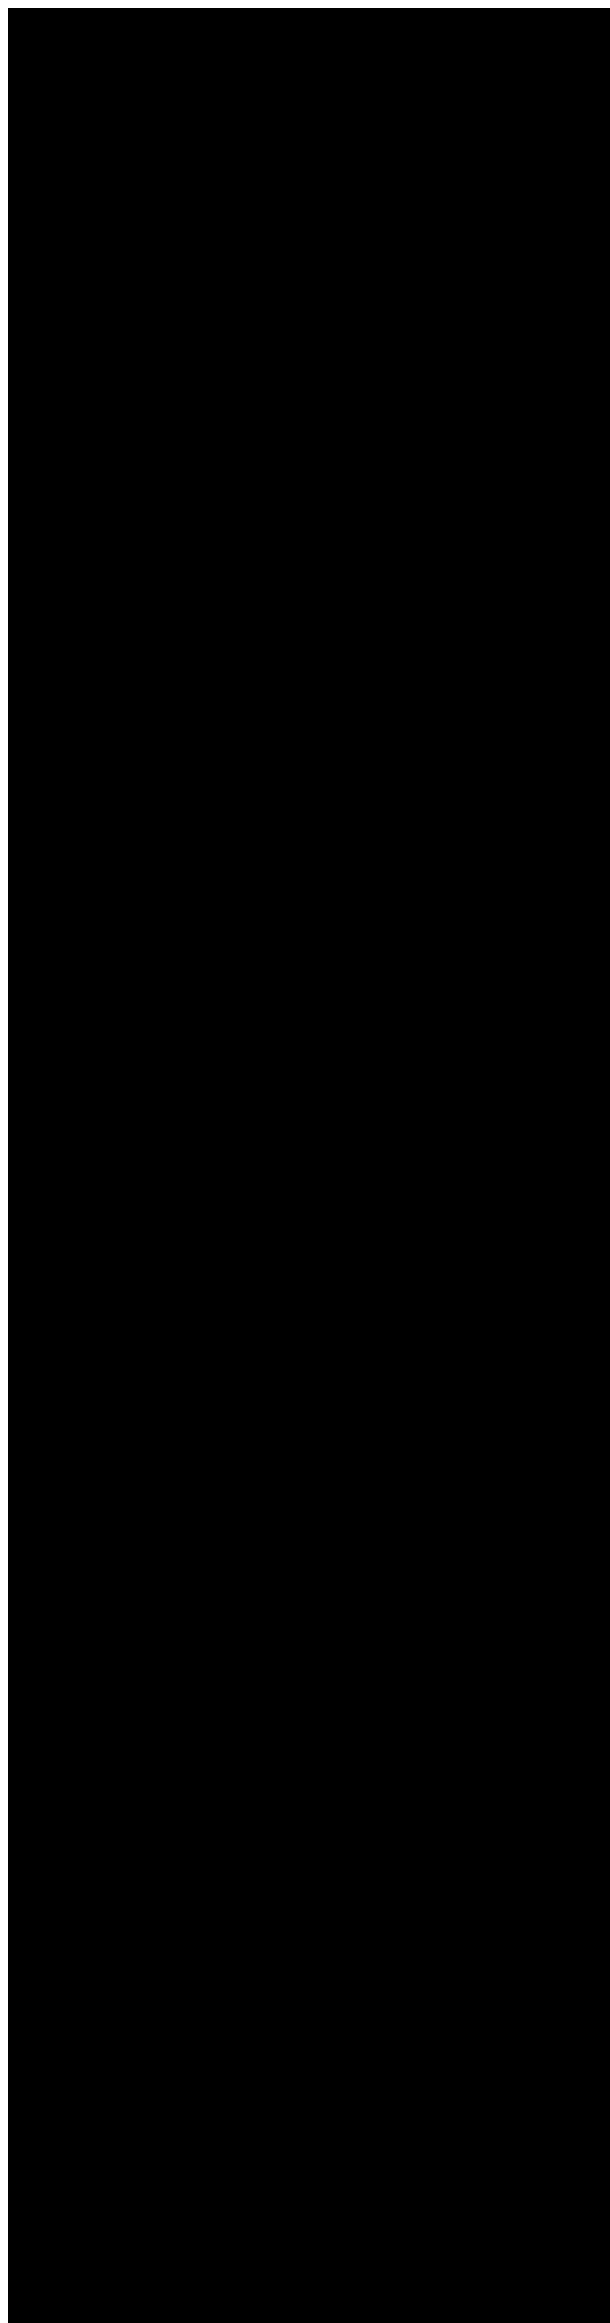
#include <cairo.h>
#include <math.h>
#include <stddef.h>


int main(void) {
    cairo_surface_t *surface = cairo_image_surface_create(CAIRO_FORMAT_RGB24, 610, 2323);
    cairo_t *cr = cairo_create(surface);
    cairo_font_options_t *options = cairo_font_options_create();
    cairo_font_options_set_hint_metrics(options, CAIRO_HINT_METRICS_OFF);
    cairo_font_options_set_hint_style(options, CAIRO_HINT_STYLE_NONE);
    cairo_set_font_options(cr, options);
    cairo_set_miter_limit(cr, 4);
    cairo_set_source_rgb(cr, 1, 1, 1);
    cairo_paint(cr);
    cairo_set_source_rgb(cr, 0, 0, 0);
    cairo_rectangle(cr, 8, 8, 602, 2315);
    cairo_fill(cr);
    cairo_surface_write_to_png(surface, "page.png");
    cairo_font_options_destroy(options);
    cairo_destroy(cr);
    cairo_surface_destroy(surface);
    return 0;
}
